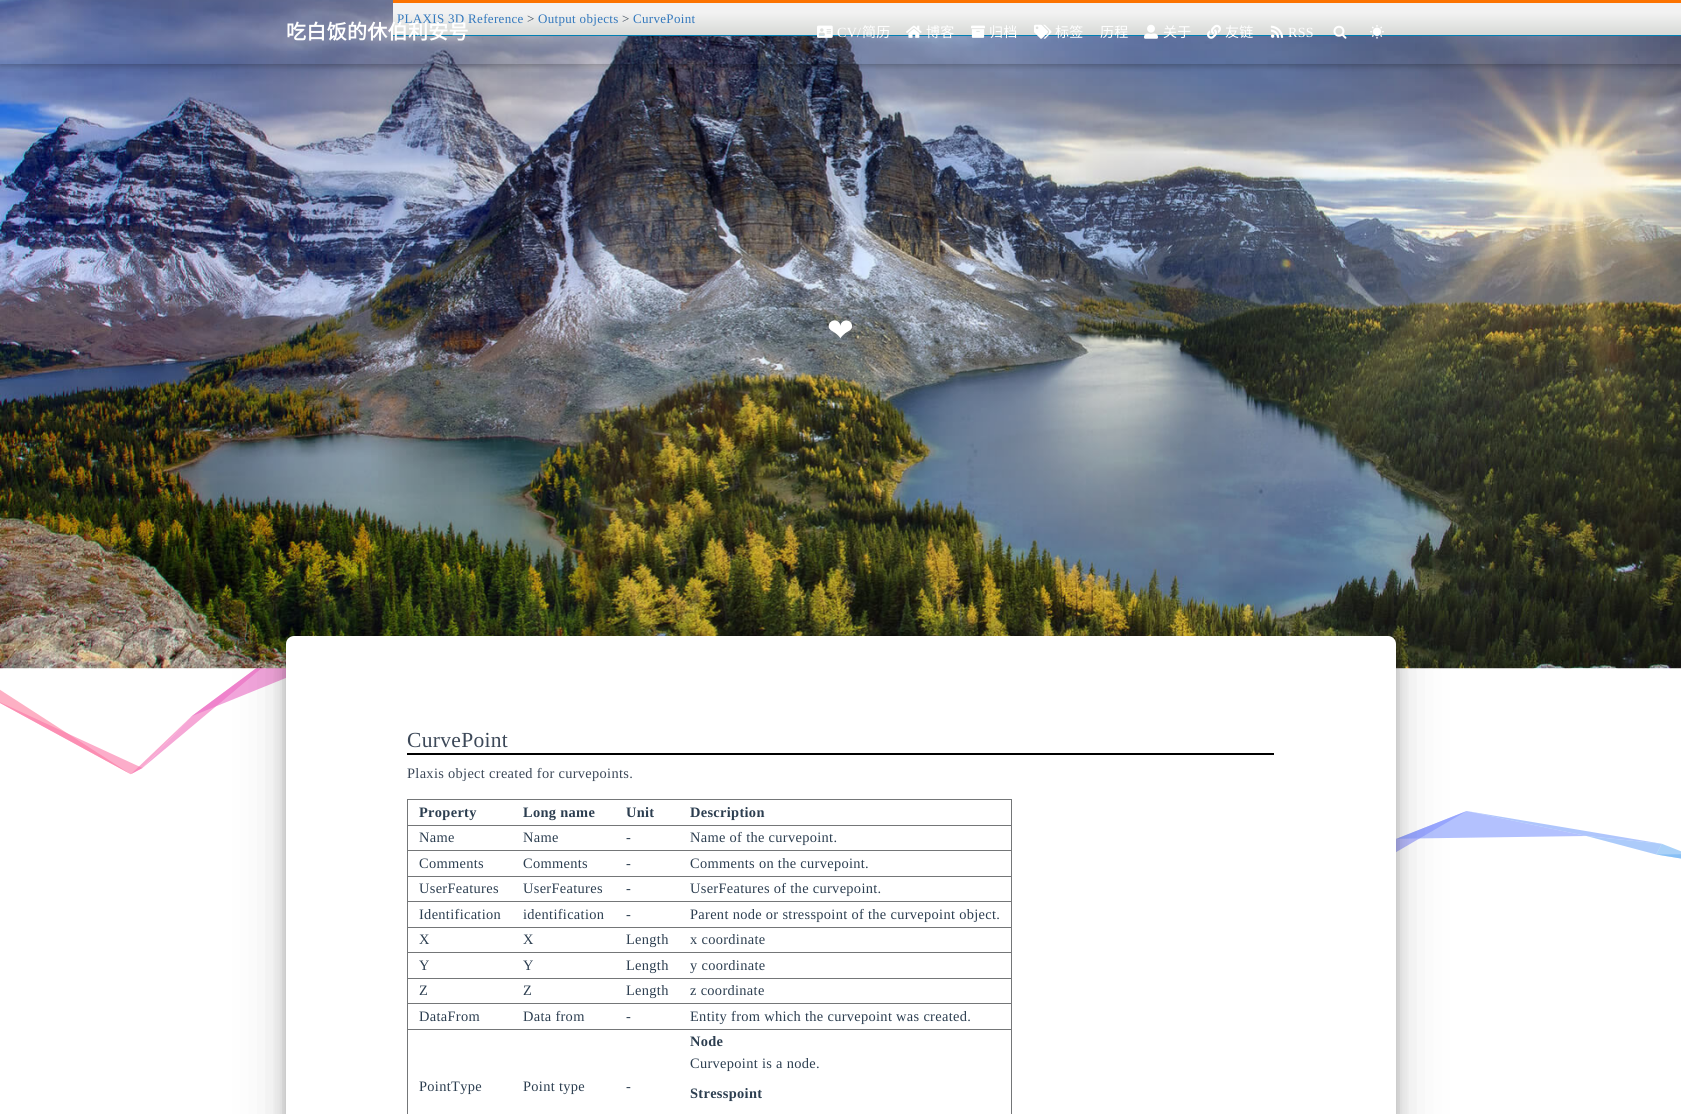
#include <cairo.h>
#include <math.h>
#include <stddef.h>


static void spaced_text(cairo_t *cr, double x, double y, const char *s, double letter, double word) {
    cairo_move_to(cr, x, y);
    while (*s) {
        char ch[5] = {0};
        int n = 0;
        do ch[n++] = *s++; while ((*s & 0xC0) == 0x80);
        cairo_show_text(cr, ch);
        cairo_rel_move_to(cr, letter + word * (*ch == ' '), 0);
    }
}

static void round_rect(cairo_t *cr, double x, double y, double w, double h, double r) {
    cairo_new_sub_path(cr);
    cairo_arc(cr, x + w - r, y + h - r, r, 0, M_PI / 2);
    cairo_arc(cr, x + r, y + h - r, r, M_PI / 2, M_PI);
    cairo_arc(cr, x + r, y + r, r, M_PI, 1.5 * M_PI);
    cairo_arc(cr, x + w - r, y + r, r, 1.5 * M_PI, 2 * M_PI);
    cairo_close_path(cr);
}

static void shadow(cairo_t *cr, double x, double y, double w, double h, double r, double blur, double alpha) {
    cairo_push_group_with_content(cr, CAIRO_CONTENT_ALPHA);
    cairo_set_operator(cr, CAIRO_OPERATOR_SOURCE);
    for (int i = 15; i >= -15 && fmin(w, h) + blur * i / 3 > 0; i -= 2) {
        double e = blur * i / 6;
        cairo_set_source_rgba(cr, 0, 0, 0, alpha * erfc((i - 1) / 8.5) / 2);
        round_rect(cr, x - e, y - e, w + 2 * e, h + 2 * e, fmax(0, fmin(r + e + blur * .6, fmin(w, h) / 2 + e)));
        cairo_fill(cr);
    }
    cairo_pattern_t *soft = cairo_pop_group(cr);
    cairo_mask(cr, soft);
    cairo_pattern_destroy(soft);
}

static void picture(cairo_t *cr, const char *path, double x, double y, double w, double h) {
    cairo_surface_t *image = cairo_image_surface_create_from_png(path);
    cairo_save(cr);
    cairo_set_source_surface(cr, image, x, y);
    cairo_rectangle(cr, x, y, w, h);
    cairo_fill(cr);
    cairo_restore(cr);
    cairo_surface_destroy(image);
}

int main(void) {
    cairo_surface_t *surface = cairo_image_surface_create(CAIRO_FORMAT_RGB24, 1681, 1114);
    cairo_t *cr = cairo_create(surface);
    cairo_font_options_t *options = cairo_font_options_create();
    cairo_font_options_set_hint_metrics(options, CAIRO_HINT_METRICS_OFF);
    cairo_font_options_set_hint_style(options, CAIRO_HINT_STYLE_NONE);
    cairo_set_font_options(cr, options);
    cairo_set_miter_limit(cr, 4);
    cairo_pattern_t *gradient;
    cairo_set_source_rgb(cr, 1, 1, 1);
    cairo_paint(cr);
    picture(cr, "img11.png", 0, 668, 1681, 191);
    picture(cr, "img10.png", 0, 0, 1681, 669);
    cairo_set_source_rgb(cr, 0, 0, 0);
    shadow(cr, 286, 653, 1110, 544, 8, 25, 0.19);
    shadow(cr, 286, 648, 1110, 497, 8, 7.5, 0.24);
    cairo_set_source_rgb(cr, 1, 1, 1);
    round_rect(cr, 286, 636, 1110, 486, 8);
    cairo_fill(cr);
    gradient = cairo_pattern_create_linear(393, 35, 393, 3);
    cairo_pattern_add_color_stop_rgba(gradient, 0, 0.843, 0.851, 0.839, 1);
    cairo_pattern_add_color_stop_rgba(gradient, 0.69, 0.949, 0.949, 0.949, 1);
    cairo_set_source(cr, gradient);
    cairo_pattern_destroy(gradient);
    cairo_rectangle(cr, 393, 3, 1288, 32);
    cairo_fill(cr);
    cairo_set_source_rgb(cr, 0.988, 0.451, 0);
    cairo_rectangle(cr, 393, 0, 1288, 3);
    cairo_fill(cr);
    cairo_set_source_rgb(cr, 0.004, 0.502, 0.702);
    cairo_rectangle(cr, 393, 35, 1288, 1);
    cairo_fill(cr);
    cairo_select_font_face(cr, "Liberation Serif", CAIRO_FONT_SLANT_NORMAL, CAIRO_FONT_WEIGHT_NORMAL);
    cairo_set_font_size(cr, 13);
    cairo_set_source_rgb(cr, 0.2, 0.471, 0.741);
    spaced_text(cr, 397, 23, "PLAXIS 3D Reference", 0.32, 0);
    cairo_set_source_rgb(cr, 0.235, 0.282, 0.345);
    spaced_text(cr, 527, 23, ">", 0.32, 0);
    cairo_set_source_rgb(cr, 0.2, 0.471, 0.741);
    spaced_text(cr, 538, 23, "Output objects", 0.32, 0);
    cairo_set_source_rgb(cr, 0.235, 0.282, 0.345);
    spaced_text(cr, 622, 23, ">", 0.32, 0);
    cairo_set_source_rgb(cr, 0.2, 0.471, 0.741);
    spaced_text(cr, 633, 23, "CurvePoint", 0.32, 0);
    cairo_set_source_rgb(cr, 0, 0, 0);
    cairo_rectangle(cr, 407, 753, 867, 2);
    cairo_fill(cr);
    cairo_set_font_size(cr, 21.5);
    cairo_set_source_rgb(cr, 0.235, 0.282, 0.345);
    spaced_text(cr, 407, 747, "CurvePoint", 0.32, 0);
    cairo_set_font_size(cr, 14.4);
    spaced_text(cr, 407, 778, "Plaxis object created for curvepoints.", 0.32, 0);
    cairo_set_source_rgb(cr, 0.455, 0.463, 0.471);
    cairo_rectangle(cr, 407, 799, 605, 1);
    cairo_fill(cr);
    cairo_rectangle(cr, 1011, 799, 1, 315);
    cairo_fill(cr);
    cairo_rectangle(cr, 407, 799, 1, 315);
    cairo_fill(cr);
    cairo_select_font_face(cr, "Liberation Serif", CAIRO_FONT_SLANT_NORMAL, CAIRO_FONT_WEIGHT_BOLD);
    cairo_set_source_rgb(cr, 0.173, 0.243, 0.314);
    spaced_text(cr, 419, 817, "Property", 0.32, 0);
    spaced_text(cr, 523, 817, "Long name", 0.32, 0);
    spaced_text(cr, 626, 817, "Unit", 0.32, 0);
    cairo_set_source_rgb(cr, 0.455, 0.463, 0.471);
    cairo_rectangle(cr, 407, 825, 605, 1);
    cairo_fill(cr);
    cairo_set_source_rgb(cr, 0.173, 0.243, 0.314);
    spaced_text(cr, 690, 817, "Description", 0.32, 0);
    cairo_select_font_face(cr, "Liberation Serif", CAIRO_FONT_SLANT_NORMAL, CAIRO_FONT_WEIGHT_NORMAL);
    spaced_text(cr, 419, 842, "Name", 0.32, 0);
    spaced_text(cr, 523, 842, "Name", 0.32, 0);
    spaced_text(cr, 626, 842, "-", 0.32, 0);
    cairo_set_source_rgb(cr, 0.455, 0.463, 0.471);
    cairo_rectangle(cr, 407, 850, 605, 1);
    cairo_fill(cr);
    cairo_set_source_rgb(cr, 0.173, 0.243, 0.314);
    spaced_text(cr, 690, 842, "Name of the curvepoint.", 0.32, 0);
    spaced_text(cr, 419, 868, "Comments", 0.32, 0);
    spaced_text(cr, 523, 868, "Comments", 0.32, 0);
    spaced_text(cr, 626, 868, "-", 0.32, 0);
    cairo_set_source_rgb(cr, 0.455, 0.463, 0.471);
    cairo_rectangle(cr, 407, 876, 605, 1);
    cairo_fill(cr);
    cairo_set_source_rgb(cr, 0.173, 0.243, 0.314);
    spaced_text(cr, 690, 868, "Comments on the curvepoint.", 0.32, 0);
    spaced_text(cr, 419, 893, "UserFeatures", 0.32, 0);
    spaced_text(cr, 523, 893, "UserFeatures", 0.32, 0);
    spaced_text(cr, 626, 893, "-", 0.32, 0);
    cairo_set_source_rgb(cr, 0.455, 0.463, 0.471);
    cairo_rectangle(cr, 407, 901, 605, 1);
    cairo_fill(cr);
    cairo_set_source_rgb(cr, 0.173, 0.243, 0.314);
    spaced_text(cr, 690, 893, "UserFeatures of the curvepoint.", 0.32, 0);
    spaced_text(cr, 419, 919, "Identification", 0.32, 0);
    spaced_text(cr, 523, 919, "identification", 0.32, 0);
    spaced_text(cr, 626, 919, "-", 0.32, 0);
    cairo_set_source_rgb(cr, 0.455, 0.463, 0.471);
    cairo_rectangle(cr, 407, 927, 605, 1);
    cairo_fill(cr);
    cairo_set_source_rgb(cr, 0.173, 0.243, 0.314);
    spaced_text(cr, 690, 919, "Parent node or stresspoint of the curvepoint object.", 0.32, 0);
    spaced_text(cr, 419, 944, "X", 0.32, 0);
    spaced_text(cr, 523, 944, "X", 0.32, 0);
    spaced_text(cr, 626, 944, "Length", 0.32, 0);
    cairo_set_source_rgb(cr, 0.455, 0.463, 0.471);
    cairo_rectangle(cr, 407, 952, 605, 1);
    cairo_fill(cr);
    cairo_set_source_rgb(cr, 0.173, 0.243, 0.314);
    spaced_text(cr, 690, 944, "x coordinate", 0.32, 0);
    spaced_text(cr, 419, 970, "Y", 0.32, 0);
    spaced_text(cr, 523, 970, "Y", 0.32, 0);
    spaced_text(cr, 626, 970, "Length", 0.32, 0);
    cairo_set_source_rgb(cr, 0.455, 0.463, 0.471);
    cairo_rectangle(cr, 407, 978, 605, 1);
    cairo_fill(cr);
    cairo_set_source_rgb(cr, 0.173, 0.243, 0.314);
    spaced_text(cr, 690, 970, "y coordinate", 0.32, 0);
    spaced_text(cr, 419, 995, "Z", 0.32, 0);
    spaced_text(cr, 523, 995, "Z", 0.32, 0);
    spaced_text(cr, 626, 995, "Length", 0.32, 0);
    cairo_set_source_rgb(cr, 0.455, 0.463, 0.471);
    cairo_rectangle(cr, 407, 1003, 605, 1);
    cairo_fill(cr);
    cairo_set_source_rgb(cr, 0.173, 0.243, 0.314);
    spaced_text(cr, 690, 995, "z coordinate", 0.32, 0);
    spaced_text(cr, 419, 1021, "DataFrom", 0.32, 0);
    spaced_text(cr, 523, 1021, "Data from", 0.32, 0);
    spaced_text(cr, 626, 1021, "-", 0.32, 0);
    cairo_set_source_rgb(cr, 0.455, 0.463, 0.471);
    cairo_rectangle(cr, 407, 1029, 605, 1);
    cairo_fill(cr);
    cairo_set_source_rgb(cr, 0.173, 0.243, 0.314);
    spaced_text(cr, 690, 1021, "Entity from which the curvepoint was created.", 0.32, 0);
    spaced_text(cr, 419, 1091, "PointType", 0.32, 0);
    spaced_text(cr, 523, 1091, "Point type", 0.32, 0);
    spaced_text(cr, 626, 1091, "-", 0.32, 0);
    cairo_select_font_face(cr, "Liberation Serif", CAIRO_FONT_SLANT_NORMAL, CAIRO_FONT_WEIGHT_BOLD);
    spaced_text(cr, 690, 1046, "Node", 0.32, 0);
    cairo_select_font_face(cr, "Liberation Serif", CAIRO_FONT_SLANT_NORMAL, CAIRO_FONT_WEIGHT_NORMAL);
    spaced_text(cr, 690, 1068, "Curvepoint is a node.", 0.32, 0);
    cairo_select_font_face(cr, "Liberation Serif", CAIRO_FONT_SLANT_NORMAL, CAIRO_FONT_WEIGHT_BOLD);
    spaced_text(cr, 690, 1098, "Stresspoint", 0.32, 0);
    cairo_save(cr);
    cairo_rectangle(cr, 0, 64, 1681, 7);
    cairo_clip(cr);
    cairo_set_source_rgb(cr, 0, 0, 0);
    shadow(cr, 0, 2, 1681, 64, 0, 5, 0.12);
    cairo_restore(cr);
    cairo_save(cr);
    cairo_rectangle(cr, 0, 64, 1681, 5);
    cairo_clip(cr);
    cairo_set_source_rgb(cr, 0, 0, 0);
    shadow(cr, 0, 2, 1681, 64, 0, 2.5, 0.16);
    cairo_restore(cr);
    cairo_select_font_face(cr, "Noto Sans CJK SC", CAIRO_FONT_SLANT_NORMAL, CAIRO_FONT_WEIGHT_BOLD);
    cairo_set_font_size(cr, 20);
    cairo_set_source_rgb(cr, 1, 1, 1);
    spaced_text(cr, 286, 39, "吃白饭的休伯利安号", 0.32, 0);
    picture(cr, "img1.png", 817, 25, 16, 13);
    cairo_select_font_face(cr, "Liberation Serif", CAIRO_FONT_SLANT_NORMAL, CAIRO_FONT_WEIGHT_NORMAL);
    cairo_set_font_size(cr, 14);
    spaced_text(cr, 837, 37, "CV/", 0.32, 0);
    cairo_select_font_face(cr, "Noto Sans CJK SC", CAIRO_FONT_SLANT_NORMAL, CAIRO_FONT_WEIGHT_NORMAL);
    spaced_text(cr, 862, 37, "简历", 0.32, 0);
    picture(cr, "img2.png", 906, 25, 16, 13);
    spaced_text(cr, 926, 37, "博客", 0.32, 0);
    picture(cr, "img3.png", 971, 25, 14, 13);
    spaced_text(cr, 989, 37, "归档", 0.32, 0);
    picture(cr, "img4.png", 1034, 24, 18, 15);
    spaced_text(cr, 1055, 37, "标签", 0.32, 0);
    spaced_text(cr, 1100, 37, "历程", 0.32, 0);
    picture(cr, "img5.png", 1144, 24, 14, 15);
    spaced_text(cr, 1163, 37, "关于", 0.32, 0);
    picture(cr, "img6.png", 1207, 24, 14, 15);
    spaced_text(cr, 1225, 37, "友链", 0.32, 0);
    picture(cr, "img7.png", 1270, 25, 14, 13);
    cairo_select_font_face(cr, "Liberation Serif", CAIRO_FONT_SLANT_NORMAL, CAIRO_FONT_WEIGHT_NORMAL);
    spaced_text(cr, 1288, 37, "RSS", 0.32, 0);
    picture(cr, "img8.png", 1333, 25, 14, 14);
    picture(cr, "img9.png", 1370, 25, 14, 14);
    cairo_select_font_face(cr, "DejaVu Sans", CAIRO_FONT_SLANT_NORMAL, CAIRO_FONT_WEIGHT_NORMAL);
    cairo_set_font_size(cr, 32);
    spaced_text(cr, 827, 341, "❤", 0.32, 0);
    cairo_surface_write_to_png(surface, "page.png");
    cairo_font_options_destroy(options);
    cairo_destroy(cr);
    cairo_surface_destroy(surface);
    return 0;
}
